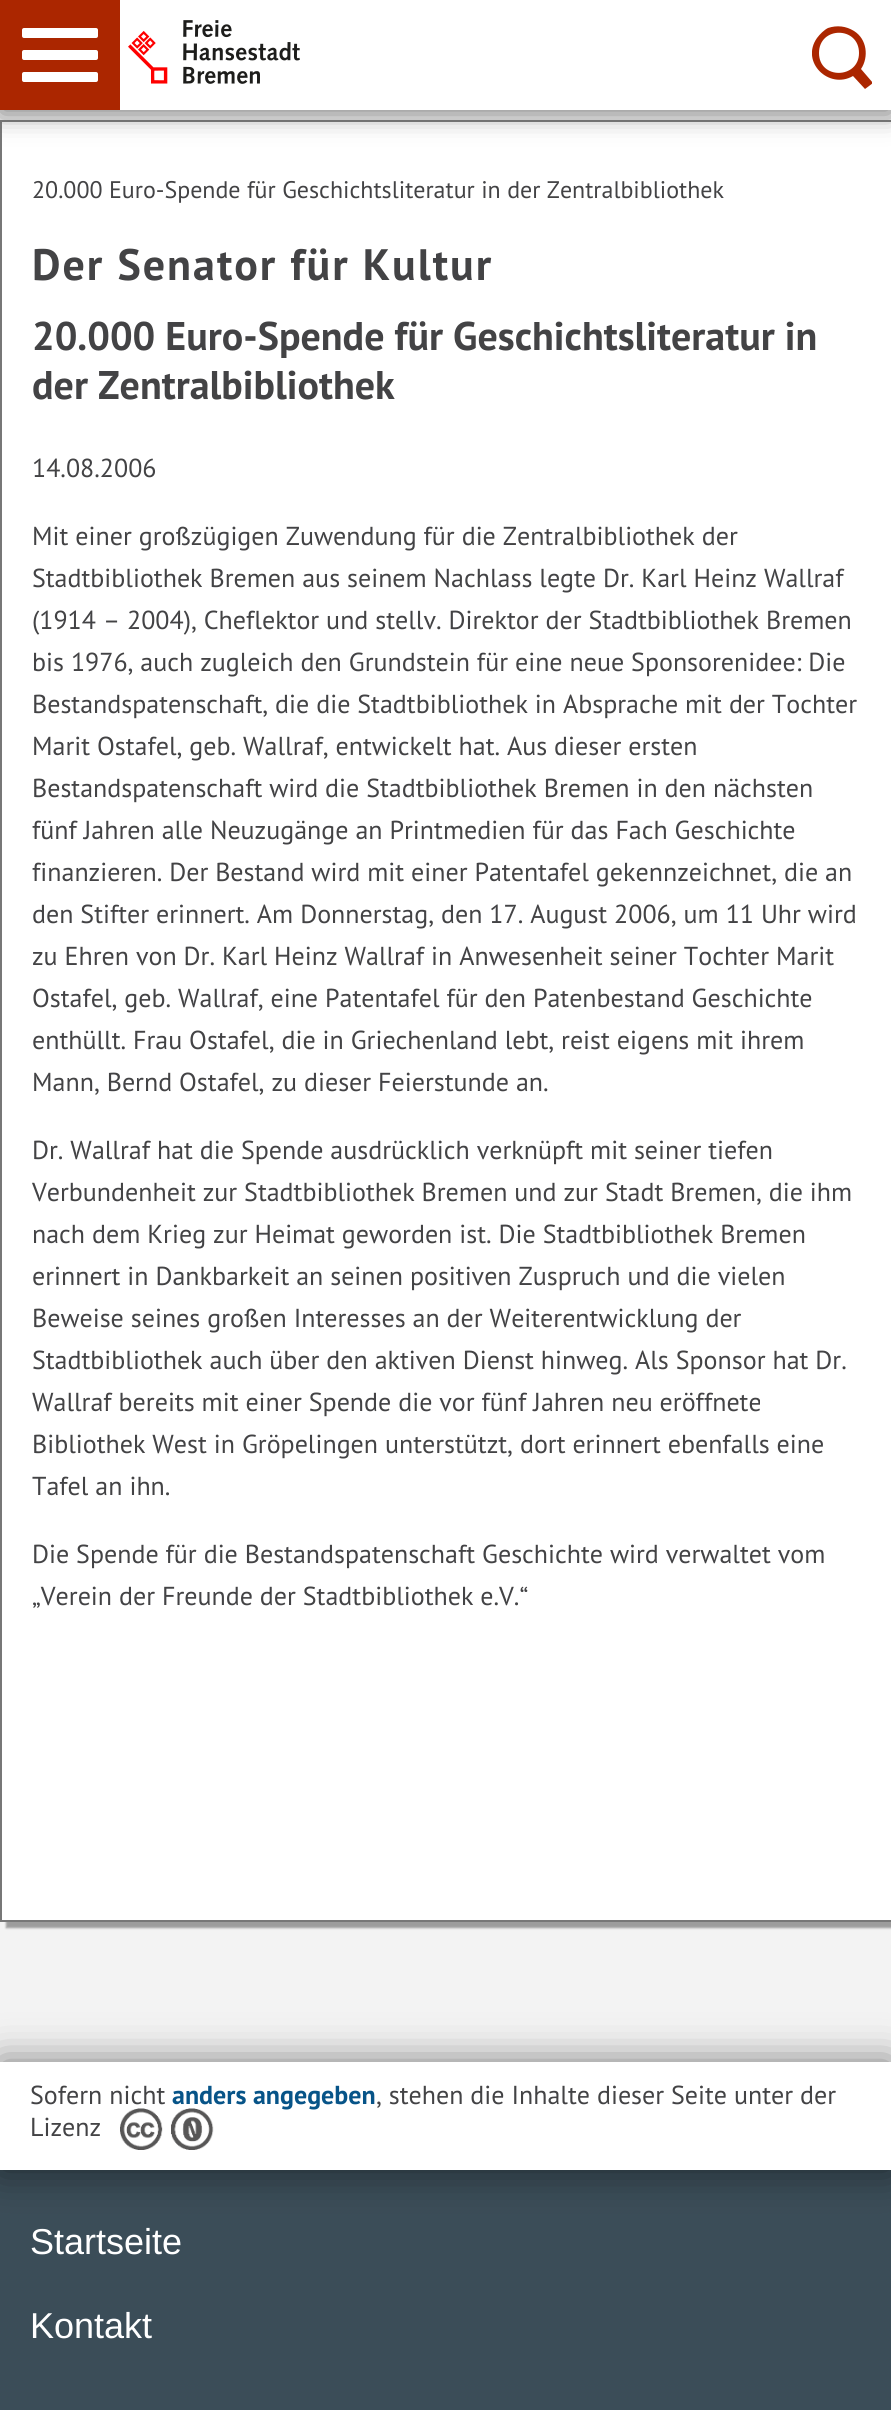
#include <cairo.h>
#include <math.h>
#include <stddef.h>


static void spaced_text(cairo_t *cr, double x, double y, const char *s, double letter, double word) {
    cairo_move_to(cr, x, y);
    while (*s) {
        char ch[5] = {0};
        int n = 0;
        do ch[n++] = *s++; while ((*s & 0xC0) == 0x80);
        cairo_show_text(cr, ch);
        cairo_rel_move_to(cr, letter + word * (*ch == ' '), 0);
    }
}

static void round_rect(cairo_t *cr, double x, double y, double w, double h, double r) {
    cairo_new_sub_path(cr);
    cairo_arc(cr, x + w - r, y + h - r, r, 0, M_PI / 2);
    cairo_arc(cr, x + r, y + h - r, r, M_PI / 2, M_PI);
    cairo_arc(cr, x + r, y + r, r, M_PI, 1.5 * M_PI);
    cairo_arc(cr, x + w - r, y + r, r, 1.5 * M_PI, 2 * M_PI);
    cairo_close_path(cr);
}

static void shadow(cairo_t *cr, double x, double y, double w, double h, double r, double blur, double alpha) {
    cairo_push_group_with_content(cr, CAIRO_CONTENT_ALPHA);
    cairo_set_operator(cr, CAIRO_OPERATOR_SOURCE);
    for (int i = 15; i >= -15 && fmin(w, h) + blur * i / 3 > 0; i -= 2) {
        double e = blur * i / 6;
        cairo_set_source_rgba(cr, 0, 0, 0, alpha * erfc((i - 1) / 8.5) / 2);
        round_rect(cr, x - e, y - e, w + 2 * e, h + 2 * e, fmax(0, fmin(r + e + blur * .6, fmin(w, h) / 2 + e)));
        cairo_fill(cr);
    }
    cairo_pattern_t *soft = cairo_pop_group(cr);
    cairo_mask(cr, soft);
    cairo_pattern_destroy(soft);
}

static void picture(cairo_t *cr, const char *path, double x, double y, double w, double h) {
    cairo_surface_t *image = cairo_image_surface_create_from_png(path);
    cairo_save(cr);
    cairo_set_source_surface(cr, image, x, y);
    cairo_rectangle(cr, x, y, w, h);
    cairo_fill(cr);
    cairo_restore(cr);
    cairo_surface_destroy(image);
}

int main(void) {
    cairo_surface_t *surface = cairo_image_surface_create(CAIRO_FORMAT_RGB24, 891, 2410);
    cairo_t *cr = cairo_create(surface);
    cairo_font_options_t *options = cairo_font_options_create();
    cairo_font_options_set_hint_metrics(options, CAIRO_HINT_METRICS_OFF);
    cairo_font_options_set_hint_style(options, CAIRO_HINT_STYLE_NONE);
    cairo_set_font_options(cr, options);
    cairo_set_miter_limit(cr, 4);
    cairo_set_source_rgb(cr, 0.953, 0.953, 0.953);
    cairo_paint(cr);
    cairo_set_source_rgb(cr, 0.196, 0.196, 0.196);
    shadow(cr, 6, 126, 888, 1802, 0, 1, 0.45);
    cairo_set_source_rgb(cr, 1, 1, 1);
    cairo_rectangle(cr, 1, 121, 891, 1800);
    cairo_fill_preserve(cr);
    cairo_set_source_rgb(cr, 0.467, 0.467, 0.467);
    cairo_stroke(cr);
    cairo_set_source_rgb(cr, 0.392, 0.392, 0.392);
    shadow(cr, 0, 4, 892, 110, 0, 13, 0.8);
    cairo_set_source_rgb(cr, 1, 1, 1);
    cairo_rectangle(cr, 120, 0, 771, 110);
    cairo_fill(cr);
    picture(cr, "img1.png", 128, 20, 172, 64);
    cairo_save(cr);
    cairo_rectangle(cr, 812, 26, 60, 64);
    cairo_clip(cr);
    cairo_set_source_rgb(cr, 0.671, 0.149, 0);
    cairo_new_path(cr);
    cairo_move_to(cr, 873, 83);
    cairo_line_to(cr, 861, 69);
    cairo_curve_to(cr, 869, 57, 867, 39, 854, 31);
    cairo_curve_to(cr, 846, 26, 837, 25, 828, 28);
    cairo_curve_to(cr, 824, 30, 820, 34, 817, 38);
    cairo_curve_to(cr, 800, 62, 829, 90, 853, 76);
    cairo_line_to(cr, 865, 89);
    cairo_close_path(cr);
    cairo_move_to(cr, 819, 53);
    cairo_curve_to(cr, 819, 26, 859, 26, 859, 53);
    cairo_curve_to(cr, 859, 79, 819, 80, 819, 53);
    cairo_close_path(cr);
    cairo_fill(cr);
    cairo_restore(cr);
    cairo_set_source_rgb(cr, 0.671, 0.149, 0);
    cairo_rectangle(cr, 0, 0, 120, 110);
    cairo_fill(cr);
    cairo_set_source_rgb(cr, 1, 1, 1);
    round_rect(cr, 22, 28, 76, 10, 2);
    cairo_fill(cr);
    round_rect(cr, 22, 50, 76, 10, 2);
    cairo_fill(cr);
    round_rect(cr, 22, 72, 76, 10, 2);
    cairo_fill(cr);
    cairo_select_font_face(cr, "PT Sans", CAIRO_FONT_SLANT_NORMAL, CAIRO_FONT_WEIGHT_NORMAL);
    cairo_set_font_size(cr, 24);
    cairo_set_source_rgb(cr, 0.263, 0.263, 0.271);
    cairo_move_to(cr, 32, 198);
    cairo_show_text(cr, "20.000 Euro-Spende für Geschichtsliteratur in der Zentralbibliothek");
    cairo_select_font_face(cr, "PT Sans", CAIRO_FONT_SLANT_NORMAL, CAIRO_FONT_WEIGHT_BOLD);
    cairo_set_font_size(cr, 44);
    spaced_text(cr, 32, 280, "Der Senator für Kultur", 2, 0);
    cairo_set_font_size(cr, 40);
    cairo_move_to(cr, 32, 350);
    cairo_show_text(cr, "20.000 Euro-Spende für Geschichtsliteratur in");
    cairo_move_to(cr, 32, 399);
    cairo_show_text(cr, "der Zentralbibliothek");
    cairo_select_font_face(cr, "PT Sans", CAIRO_FONT_SLANT_NORMAL, CAIRO_FONT_WEIGHT_NORMAL);
    cairo_set_font_size(cr, 26);
    cairo_move_to(cr, 32, 477);
    cairo_show_text(cr, "14.08.2006");
    cairo_move_to(cr, 32, 545);
    cairo_show_text(cr, "Mit einer großzügigen Zuwendung für die Zentralbibliothek der");
    cairo_move_to(cr, 32, 587);
    cairo_show_text(cr, "Stadtbibliothek Bremen aus seinem Nachlass legte Dr. Karl Heinz Wallraf");
    cairo_move_to(cr, 32, 629);
    cairo_show_text(cr, "(1914 – 2004), Cheflektor und stellv. Direktor der Stadtbibliothek Bremen");
    cairo_move_to(cr, 32, 671);
    cairo_show_text(cr, "bis 1976, auch zugleich den Grundstein für eine neue Sponsorenidee: Die");
    cairo_move_to(cr, 32, 713);
    cairo_show_text(cr, "Bestandspatenschaft, die die Stadtbibliothek in Absprache mit der Tochter");
    cairo_move_to(cr, 32, 755);
    cairo_show_text(cr, "Marit Ostafel, geb. Wallraf, entwickelt hat. Aus dieser ersten");
    cairo_move_to(cr, 32, 797);
    cairo_show_text(cr, "Bestandspatenschaft wird die Stadtbibliothek Bremen in den nächsten");
    cairo_move_to(cr, 32, 839);
    cairo_show_text(cr, "fünf Jahren alle Neuzugänge an Printmedien für das Fach Geschichte");
    cairo_move_to(cr, 32, 881);
    cairo_show_text(cr, "finanzieren. Der Bestand wird mit einer Patentafel gekennzeichnet, die an");
    cairo_move_to(cr, 32, 923);
    cairo_show_text(cr, "den Stifter erinnert. Am Donnerstag, den 17. August 2006, um 11 Uhr wird");
    cairo_move_to(cr, 32, 965);
    cairo_show_text(cr, "zu Ehren von Dr. Karl Heinz Wallraf in Anwesenheit seiner Tochter Marit");
    cairo_move_to(cr, 32, 1007);
    cairo_show_text(cr, "Ostafel, geb. Wallraf, eine Patentafel für den Patenbestand Geschichte");
    cairo_move_to(cr, 32, 1049);
    cairo_show_text(cr, "enthüllt. Frau Ostafel, die in Griechenland lebt, reist eigens mit ihrem");
    cairo_move_to(cr, 32, 1091);
    cairo_show_text(cr, "Mann, Bernd Ostafel, zu dieser Feierstunde an.");
    cairo_move_to(cr, 32, 1159);
    cairo_show_text(cr, "Dr. Wallraf hat die Spende ausdrücklich verknüpft mit seiner tiefen");
    cairo_move_to(cr, 32, 1201);
    cairo_show_text(cr, "Verbundenheit zur Stadtbibliothek Bremen und zur Stadt Bremen, die ihm");
    cairo_move_to(cr, 32, 1243);
    cairo_show_text(cr, "nach dem Krieg zur Heimat geworden ist. Die Stadtbibliothek Bremen");
    cairo_move_to(cr, 32, 1285);
    cairo_show_text(cr, "erinnert in Dankbarkeit an seinen positiven Zuspruch und die vielen");
    cairo_move_to(cr, 32, 1327);
    cairo_show_text(cr, "Beweise seines großen Interesses an der Weiterentwicklung der");
    cairo_move_to(cr, 32, 1369);
    cairo_show_text(cr, "Stadtbibliothek auch über den aktiven Dienst hinweg. Als Sponsor hat Dr.");
    cairo_move_to(cr, 32, 1411);
    cairo_show_text(cr, "Wallraf bereits mit einer Spende die vor fünf Jahren neu eröffnete");
    cairo_move_to(cr, 32, 1453);
    cairo_show_text(cr, "Bibliothek West in Gröpelingen unterstützt, dort erinnert ebenfalls eine");
    cairo_move_to(cr, 32, 1495);
    cairo_show_text(cr, "Tafel an ihn.");
    cairo_move_to(cr, 32, 1563);
    cairo_show_text(cr, "Die Spende für die Bestandspatenschaft Geschichte wird verwaltet vom");
    cairo_move_to(cr, 32, 1605);
    cairo_show_text(cr, "„Verein der Freunde der Stadtbibliothek e.V.“");
    cairo_set_source_rgb(cr, 0.231, 0.302, 0.345);
    cairo_rectangle(cr, 0, 2170, 891, 240);
    cairo_fill(cr);
    cairo_set_source_rgb(cr, 0, 0, 0);
    shadow(cr, 0, 2062, 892, 108, 0, 20, 0.5);
    cairo_set_source_rgb(cr, 1, 1, 1);
    cairo_rectangle(cr, 0, 2062, 891, 108);
    cairo_fill(cr);
    cairo_set_source_rgb(cr, 0.263, 0.263, 0.271);
    cairo_move_to(cr, 30, 2104);
    cairo_show_text(cr, "Sofern nicht");
    cairo_select_font_face(cr, "PT Sans", CAIRO_FONT_SLANT_NORMAL, CAIRO_FONT_WEIGHT_BOLD);
    cairo_set_source_rgb(cr, 0.031, 0.329, 0.533);
    cairo_move_to(cr, 172, 2104);
    cairo_show_text(cr, "anders angegeben");
    cairo_select_font_face(cr, "PT Sans", CAIRO_FONT_SLANT_NORMAL, CAIRO_FONT_WEIGHT_NORMAL);
    cairo_set_source_rgb(cr, 0.263, 0.263, 0.271);
    cairo_move_to(cr, 376, 2104);
    cairo_show_text(cr, ", stehen die Inhalte dieser Seite unter der");
    cairo_move_to(cr, 30, 2136);
    cairo_show_text(cr, "Lizenz");
    picture(cr, "img2.png", 120, 2108, 94, 42);
    cairo_select_font_face(cr, "Liberation Sans", CAIRO_FONT_SLANT_NORMAL, CAIRO_FONT_WEIGHT_NORMAL);
    cairo_set_font_size(cr, 36);
    cairo_set_source_rgb(cr, 1, 1, 1);
    cairo_move_to(cr, 30, 2254);
    cairo_show_text(cr, "Startseite");
    cairo_move_to(cr, 30, 2338);
    cairo_show_text(cr, "Kontakt");
    cairo_surface_write_to_png(surface, "page.png");
    cairo_font_options_destroy(options);
    cairo_destroy(cr);
    cairo_surface_destroy(surface);
    return 0;
}
